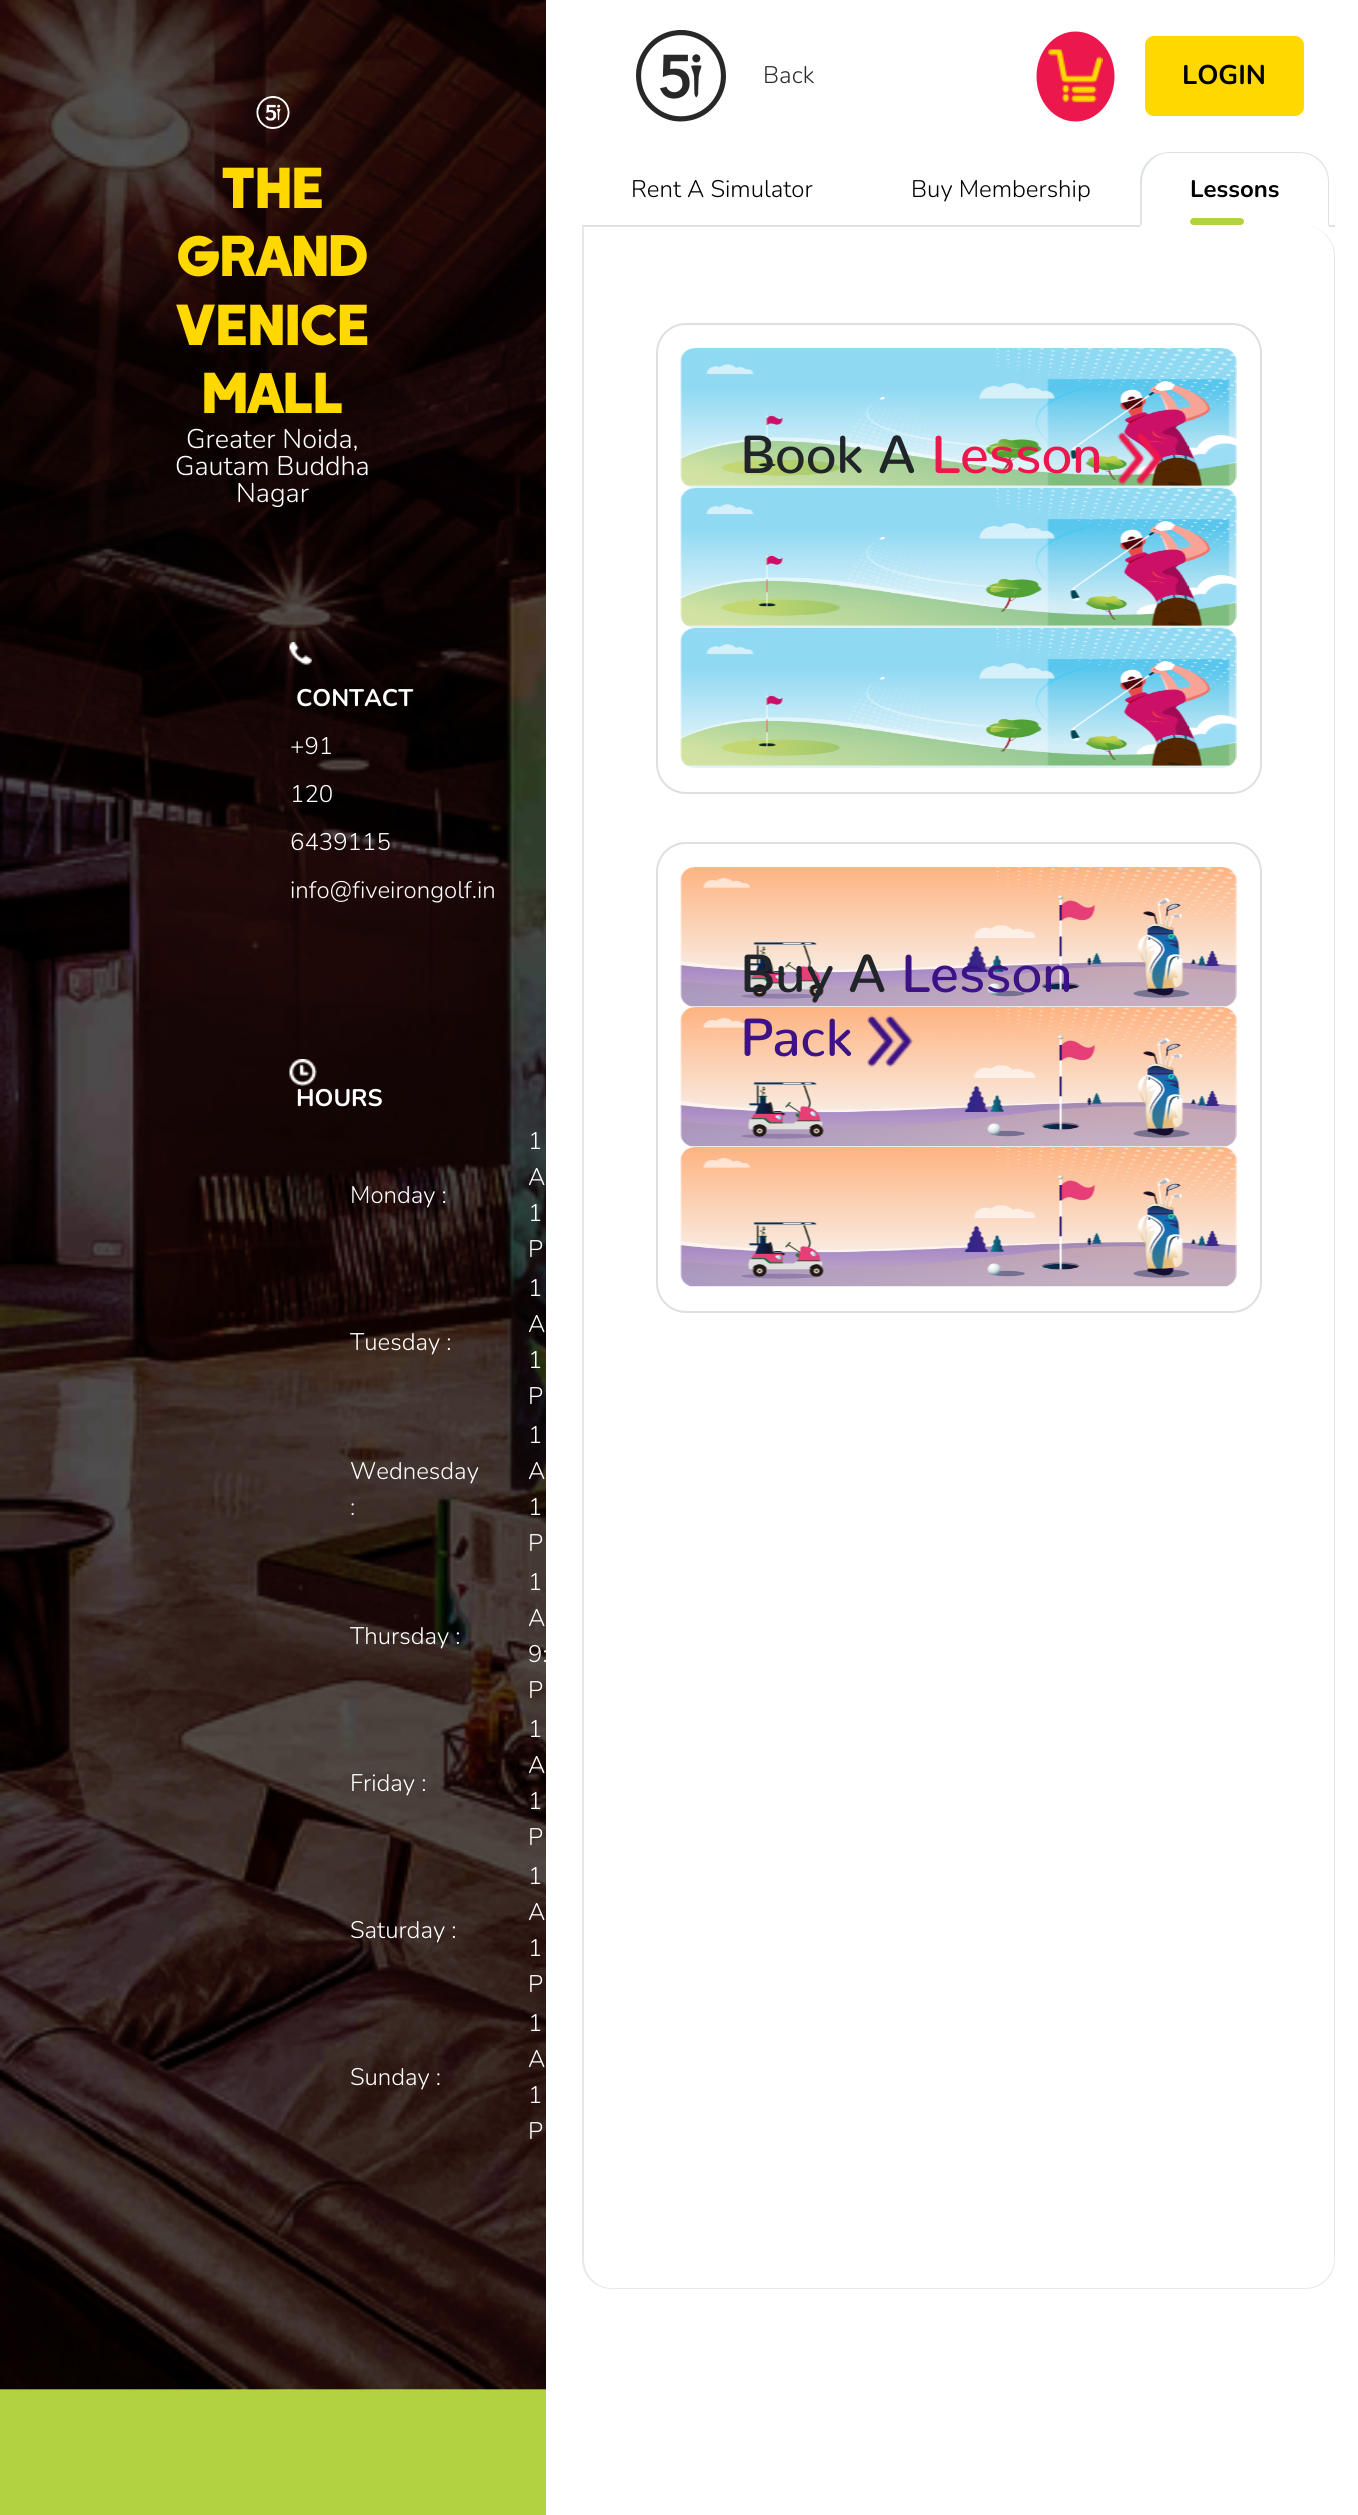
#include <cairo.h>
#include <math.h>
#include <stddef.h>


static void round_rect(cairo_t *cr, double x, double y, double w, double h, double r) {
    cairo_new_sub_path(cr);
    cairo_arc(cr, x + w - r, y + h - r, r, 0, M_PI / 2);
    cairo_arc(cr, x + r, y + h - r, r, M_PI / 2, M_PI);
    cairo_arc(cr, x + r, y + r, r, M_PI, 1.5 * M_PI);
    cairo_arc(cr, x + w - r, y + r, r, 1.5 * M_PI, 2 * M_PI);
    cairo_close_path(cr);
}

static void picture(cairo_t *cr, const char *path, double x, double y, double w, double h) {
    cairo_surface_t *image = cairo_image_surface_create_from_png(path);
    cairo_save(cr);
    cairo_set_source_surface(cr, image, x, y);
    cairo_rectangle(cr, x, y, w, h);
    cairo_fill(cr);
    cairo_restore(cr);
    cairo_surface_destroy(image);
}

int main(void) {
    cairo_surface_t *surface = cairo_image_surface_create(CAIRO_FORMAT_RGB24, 1358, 2515);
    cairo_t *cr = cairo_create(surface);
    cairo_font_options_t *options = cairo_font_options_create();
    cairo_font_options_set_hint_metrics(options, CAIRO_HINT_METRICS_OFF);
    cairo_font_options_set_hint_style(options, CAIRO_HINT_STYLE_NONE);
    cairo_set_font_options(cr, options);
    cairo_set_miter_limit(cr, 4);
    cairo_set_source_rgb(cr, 1, 1, 1);
    cairo_paint(cr);
    picture(cr, "img1.png", 0, 0, 546, 2390);
    picture(cr, "img2.png", 256, 96, 34, 33);
    cairo_select_font_face(cr, "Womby", CAIRO_FONT_SLANT_NORMAL, CAIRO_FONT_WEIGHT_NORMAL);
    cairo_set_font_size(cr, 57);
    cairo_set_source_rgb(cr, 1, 0.847, 0);
    cairo_move_to(cr, 221, 208);
    cairo_show_text(cr, "The");
    cairo_move_to(cr, 177, 276);
    cairo_show_text(cr, "Grand");
    cairo_move_to(cr, 175, 345);
    cairo_show_text(cr, "Venice");
    cairo_move_to(cr, 202, 413);
    cairo_show_text(cr, "Mall");
    cairo_select_font_face(cr, "Nunito Light", CAIRO_FONT_SLANT_NORMAL, CAIRO_FONT_WEIGHT_NORMAL);
    cairo_set_font_size(cr, 27);
    cairo_set_source_rgb(cr, 1, 1, 1);
    cairo_move_to(cr, 186, 448);
    cairo_show_text(cr, "Greater Noida,");
    cairo_move_to(cr, 175, 475);
    cairo_show_text(cr, "Gautam Buddha");
    cairo_move_to(cr, 236, 502);
    cairo_show_text(cr, "Nagar");
    picture(cr, "img3.png", 289, 642, 23, 23);
    cairo_select_font_face(cr, "Nunito", CAIRO_FONT_SLANT_NORMAL, CAIRO_FONT_WEIGHT_BOLD);
    cairo_set_font_size(cr, 24);
    cairo_move_to(cr, 296, 706);
    cairo_show_text(cr, "CONTACT");
    cairo_select_font_face(cr, "Nunito Light", CAIRO_FONT_SLANT_NORMAL, CAIRO_FONT_WEIGHT_NORMAL);
    cairo_move_to(cr, 290, 754);
    cairo_show_text(cr, "+91");
    cairo_move_to(cr, 290, 802);
    cairo_show_text(cr, "120");
    cairo_move_to(cr, 290, 850);
    cairo_show_text(cr, "6439115");
    cairo_move_to(cr, 290, 898);
    cairo_show_text(cr, "info@fiveirongolf.in");
    picture(cr, "img4.png", 289, 1059, 28, 27);
    cairo_select_font_face(cr, "Nunito", CAIRO_FONT_SLANT_NORMAL, CAIRO_FONT_WEIGHT_BOLD);
    cairo_move_to(cr, 296, 1106);
    cairo_show_text(cr, "HOURS");
    cairo_select_font_face(cr, "Nunito Light", CAIRO_FONT_SLANT_NORMAL, CAIRO_FONT_WEIGHT_NORMAL);
    cairo_move_to(cr, 350, 1203);
    cairo_show_text(cr, "Monday :");
    cairo_move_to(cr, 528, 1149);
    cairo_show_text(cr, "1");
    cairo_move_to(cr, 528, 1185);
    cairo_show_text(cr, "A");
    cairo_move_to(cr, 528, 1221);
    cairo_show_text(cr, "1");
    cairo_move_to(cr, 528, 1257);
    cairo_show_text(cr, "P");
    cairo_move_to(cr, 350, 1350);
    cairo_show_text(cr, "Tuesday :");
    cairo_move_to(cr, 528, 1296);
    cairo_show_text(cr, "1");
    cairo_move_to(cr, 528, 1332);
    cairo_show_text(cr, "A");
    cairo_move_to(cr, 528, 1368);
    cairo_show_text(cr, "1");
    cairo_move_to(cr, 528, 1404);
    cairo_show_text(cr, "P");
    cairo_move_to(cr, 350, 1479);
    cairo_show_text(cr, "Wednesday");
    cairo_move_to(cr, 350, 1515);
    cairo_show_text(cr, ":");
    cairo_move_to(cr, 528, 1443);
    cairo_show_text(cr, "1");
    cairo_move_to(cr, 528, 1479);
    cairo_show_text(cr, "A");
    cairo_move_to(cr, 528, 1515);
    cairo_show_text(cr, "1");
    cairo_move_to(cr, 528, 1551);
    cairo_show_text(cr, "P");
    cairo_move_to(cr, 350, 1644);
    cairo_show_text(cr, "Thursday :");
    cairo_move_to(cr, 528, 1590);
    cairo_show_text(cr, "1");
    cairo_move_to(cr, 528, 1626);
    cairo_show_text(cr, "A");
    cairo_move_to(cr, 528, 1662);
    cairo_show_text(cr, "9:");
    cairo_move_to(cr, 528, 1698);
    cairo_show_text(cr, "P");
    cairo_move_to(cr, 350, 1791);
    cairo_show_text(cr, "Friday :");
    cairo_move_to(cr, 528, 1737);
    cairo_show_text(cr, "1");
    cairo_move_to(cr, 528, 1773);
    cairo_show_text(cr, "A");
    cairo_move_to(cr, 528, 1809);
    cairo_show_text(cr, "1");
    cairo_move_to(cr, 528, 1845);
    cairo_show_text(cr, "P");
    cairo_move_to(cr, 350, 1938);
    cairo_show_text(cr, "Saturday :");
    cairo_move_to(cr, 528, 1884);
    cairo_show_text(cr, "1");
    cairo_move_to(cr, 528, 1920);
    cairo_show_text(cr, "A");
    cairo_move_to(cr, 528, 1956);
    cairo_show_text(cr, "1");
    cairo_move_to(cr, 528, 1992);
    cairo_show_text(cr, "P");
    cairo_move_to(cr, 350, 2085);
    cairo_show_text(cr, "Sunday :");
    cairo_move_to(cr, 528, 2031);
    cairo_show_text(cr, "1");
    cairo_move_to(cr, 528, 2067);
    cairo_show_text(cr, "A");
    cairo_move_to(cr, 528, 2103);
    cairo_show_text(cr, "1");
    cairo_move_to(cr, 528, 2139);
    cairo_show_text(cr, "P");
    cairo_set_source_rgb(cr, 0.702, 0.824, 0.251);
    cairo_rectangle(cr, 0, 2390, 546, 125);
    cairo_fill(cr);
    picture(cr, "img5.png", 636, 30, 90, 92);
    cairo_set_source_rgb(cr, 0.169, 0.18, 0.192);
    cairo_move_to(cr, 763, 83);
    cairo_show_text(cr, "Back");
    cairo_set_source_rgb(cr, 0.925, 0.09, 0.302);
    cairo_new_path(cr);
    cairo_move_to(cr, 1075.5, 31.5);
    cairo_curve_to(cr, 1097, 31.5, 1114.5, 51.5, 1114.5, 76.5);
    cairo_curve_to(cr, 1114.5, 101.5, 1097, 121.5, 1075.5, 121.5);
    cairo_curve_to(cr, 1054, 121.5, 1036.5, 101.5, 1036.5, 76.5);
    cairo_curve_to(cr, 1036.5, 51.5, 1054, 31.5, 1075.5, 31.5);
    cairo_close_path(cr);
    cairo_fill(cr);
    picture(cr, "img6.png", 1048, 49, 55, 54);
    cairo_set_source_rgb(cr, 1, 0.847, 0);
    round_rect(cr, 1145, 36, 159, 80, 9);
    cairo_fill(cr);
    cairo_select_font_face(cr, "Nunito", CAIRO_FONT_SLANT_NORMAL, CAIRO_FONT_WEIGHT_BOLD);
    cairo_set_font_size(cr, 27);
    cairo_set_source_rgb(cr, 0, 0, 0);
    cairo_move_to(cr, 1182, 84);
    cairo_show_text(cr, "LOGIN");
    cairo_set_source_rgb(cr, 0.871, 0.886, 0.902);
    cairo_rectangle(cr, 582, 225, 753, 2);
    cairo_fill(cr);
    cairo_select_font_face(cr, "Nunito Light", CAIRO_FONT_SLANT_NORMAL, CAIRO_FONT_WEIGHT_NORMAL);
    cairo_set_font_size(cr, 24);
    cairo_set_source_rgb(cr, 0, 0, 0);
    cairo_move_to(cr, 631, 197);
    cairo_show_text(cr, "Rent A Simulator");
    cairo_move_to(cr, 911, 197);
    cairo_show_text(cr, "Buy Membership");
    cairo_set_source_rgb(cr, 1, 1, 1);
    cairo_new_path(cr);
    cairo_move_to(cr, 1170, 152);
    cairo_line_to(cr, 1299, 152);
    cairo_curve_to(cr, 1315.5, 152, 1329, 165.5, 1329, 182);
    cairo_line_to(cr, 1329, 227);
    cairo_line_to(cr, 1140, 227);
    cairo_line_to(cr, 1140, 182);
    cairo_curve_to(cr, 1140, 165.5, 1153.5, 152, 1170, 152);
    cairo_close_path(cr);
    cairo_fill(cr);
    cairo_set_source_rgb(cr, 0.871, 0.886, 0.902);
    cairo_new_path(cr);
    cairo_move_to(cr, 1170, 152);
    cairo_curve_to(cr, 1162, 152, 1154, 155, 1149, 160);
    cairo_line_to(cr, 1150, 162);
    cairo_curve_to(cr, 1155, 156, 1162, 153, 1170, 153);
    cairo_line_to(cr, 1299, 153);
    cairo_curve_to(cr, 1307, 153, 1314, 156, 1319, 161);
    cairo_line_to(cr, 1320, 160);
    cairo_curve_to(cr, 1315, 155, 1307, 152, 1299, 152);
    cairo_close_path(cr);
    cairo_fill(cr);
    cairo_new_path(cr);
    cairo_move_to(cr, 1320, 160);
    cairo_curve_to(cr, 1326, 166, 1329, 173, 1329, 182);
    cairo_line_to(cr, 1329, 226);
    cairo_line_to(cr, 1328, 225);
    cairo_line_to(cr, 1328, 182);
    cairo_curve_to(cr, 1328, 174, 1325, 167, 1319, 161);
    cairo_close_path(cr);
    cairo_fill(cr);
    cairo_new_path(cr);
    cairo_move_to(cr, 1140, 182);
    cairo_line_to(cr, 1140, 226);
    cairo_line_to(cr, 1142, 224);
    cairo_line_to(cr, 1142, 182);
    cairo_curve_to(cr, 1142, 174, 1145, 167, 1150, 162);
    cairo_line_to(cr, 1149, 160);
    cairo_curve_to(cr, 1143, 166, 1140, 173, 1140, 182);
    cairo_close_path(cr);
    cairo_fill(cr);
    cairo_select_font_face(cr, "Nunito", CAIRO_FONT_SLANT_NORMAL, CAIRO_FONT_WEIGHT_BOLD);
    cairo_set_source_rgb(cr, 0, 0, 0);
    cairo_move_to(cr, 1190, 197);
    cairo_show_text(cr, "Lessons");
    cairo_set_source_rgb(cr, 0.702, 0.824, 0.251);
    round_rect(cr, 1190, 218, 54, 7, 3.5);
    cairo_fill(cr);
    cairo_set_source_rgb(cr, 0.91, 0.91, 0.91);
    cairo_set_fill_rule(cr, CAIRO_FILL_RULE_EVEN_ODD);
    cairo_new_path(cr);
    cairo_move_to(cr, 582, 226);
    cairo_line_to(cr, 1305, 226);
    cairo_curve_to(cr, 1322, 226, 1335, 240, 1335, 256);
    cairo_line_to(cr, 1335, 2259);
    cairo_curve_to(cr, 1335, 2276, 1322, 2289, 1305, 2289);
    cairo_line_to(cr, 612, 2289);
    cairo_curve_to(cr, 595, 2289, 582, 2276, 582, 2259);
    cairo_close_path(cr);
    cairo_move_to(cr, 584, 226);
    cairo_line_to(cr, 1305, 226);
    cairo_curve_to(cr, 1321, 226, 1334, 240, 1334, 256);
    cairo_line_to(cr, 1334, 2259);
    cairo_curve_to(cr, 1334, 2275, 1321, 2288, 1305, 2288);
    cairo_line_to(cr, 612, 2288);
    cairo_curve_to(cr, 596, 2288, 584, 2275, 584, 2259);
    cairo_close_path(cr);
    cairo_fill(cr);
    round_rect(cr, 657, 324, 604, 469, 29);
    cairo_set_source_rgb(cr, 0.875, 0.875, 0.875);
    cairo_stroke(cr);
    picture(cr, "img7.png", 680, 348, 557, 420);
    cairo_select_font_face(cr, "Nunito Medium", CAIRO_FONT_SLANT_NORMAL, CAIRO_FONT_WEIGHT_NORMAL);
    cairo_set_font_size(cr, 53.5);
    cairo_set_source_rgb(cr, 0.129, 0.145, 0.161);
    cairo_move_to(cr, 740, 473);
    cairo_show_text(cr, "Book A");
    cairo_set_source_rgb(cr, 0.925, 0.09, 0.302);
    cairo_move_to(cr, 931, 473);
    cairo_show_text(cr, "Lesson");
    picture(cr, "img8.png", 1117, 432, 46, 54);
    round_rect(cr, 657, 843, 604, 469, 29);
    cairo_set_source_rgb(cr, 0.875, 0.875, 0.875);
    cairo_stroke(cr);
    picture(cr, "img9.png", 680, 867, 557, 420);
    cairo_set_source_rgb(cr, 0.129, 0.145, 0.161);
    cairo_move_to(cr, 740, 992);
    cairo_show_text(cr, "Buy A");
    cairo_set_source_rgb(cr, 0.235, 0.071, 0.525);
    cairo_move_to(cr, 901, 992);
    cairo_show_text(cr, "Lesson");
    cairo_move_to(cr, 740, 1056);
    cairo_show_text(cr, "Pack");
    picture(cr, "img10.png", 867, 1015, 47, 52);
    cairo_surface_write_to_png(surface, "page.png");
    cairo_font_options_destroy(options);
    cairo_destroy(cr);
    cairo_surface_destroy(surface);
    return 0;
}
